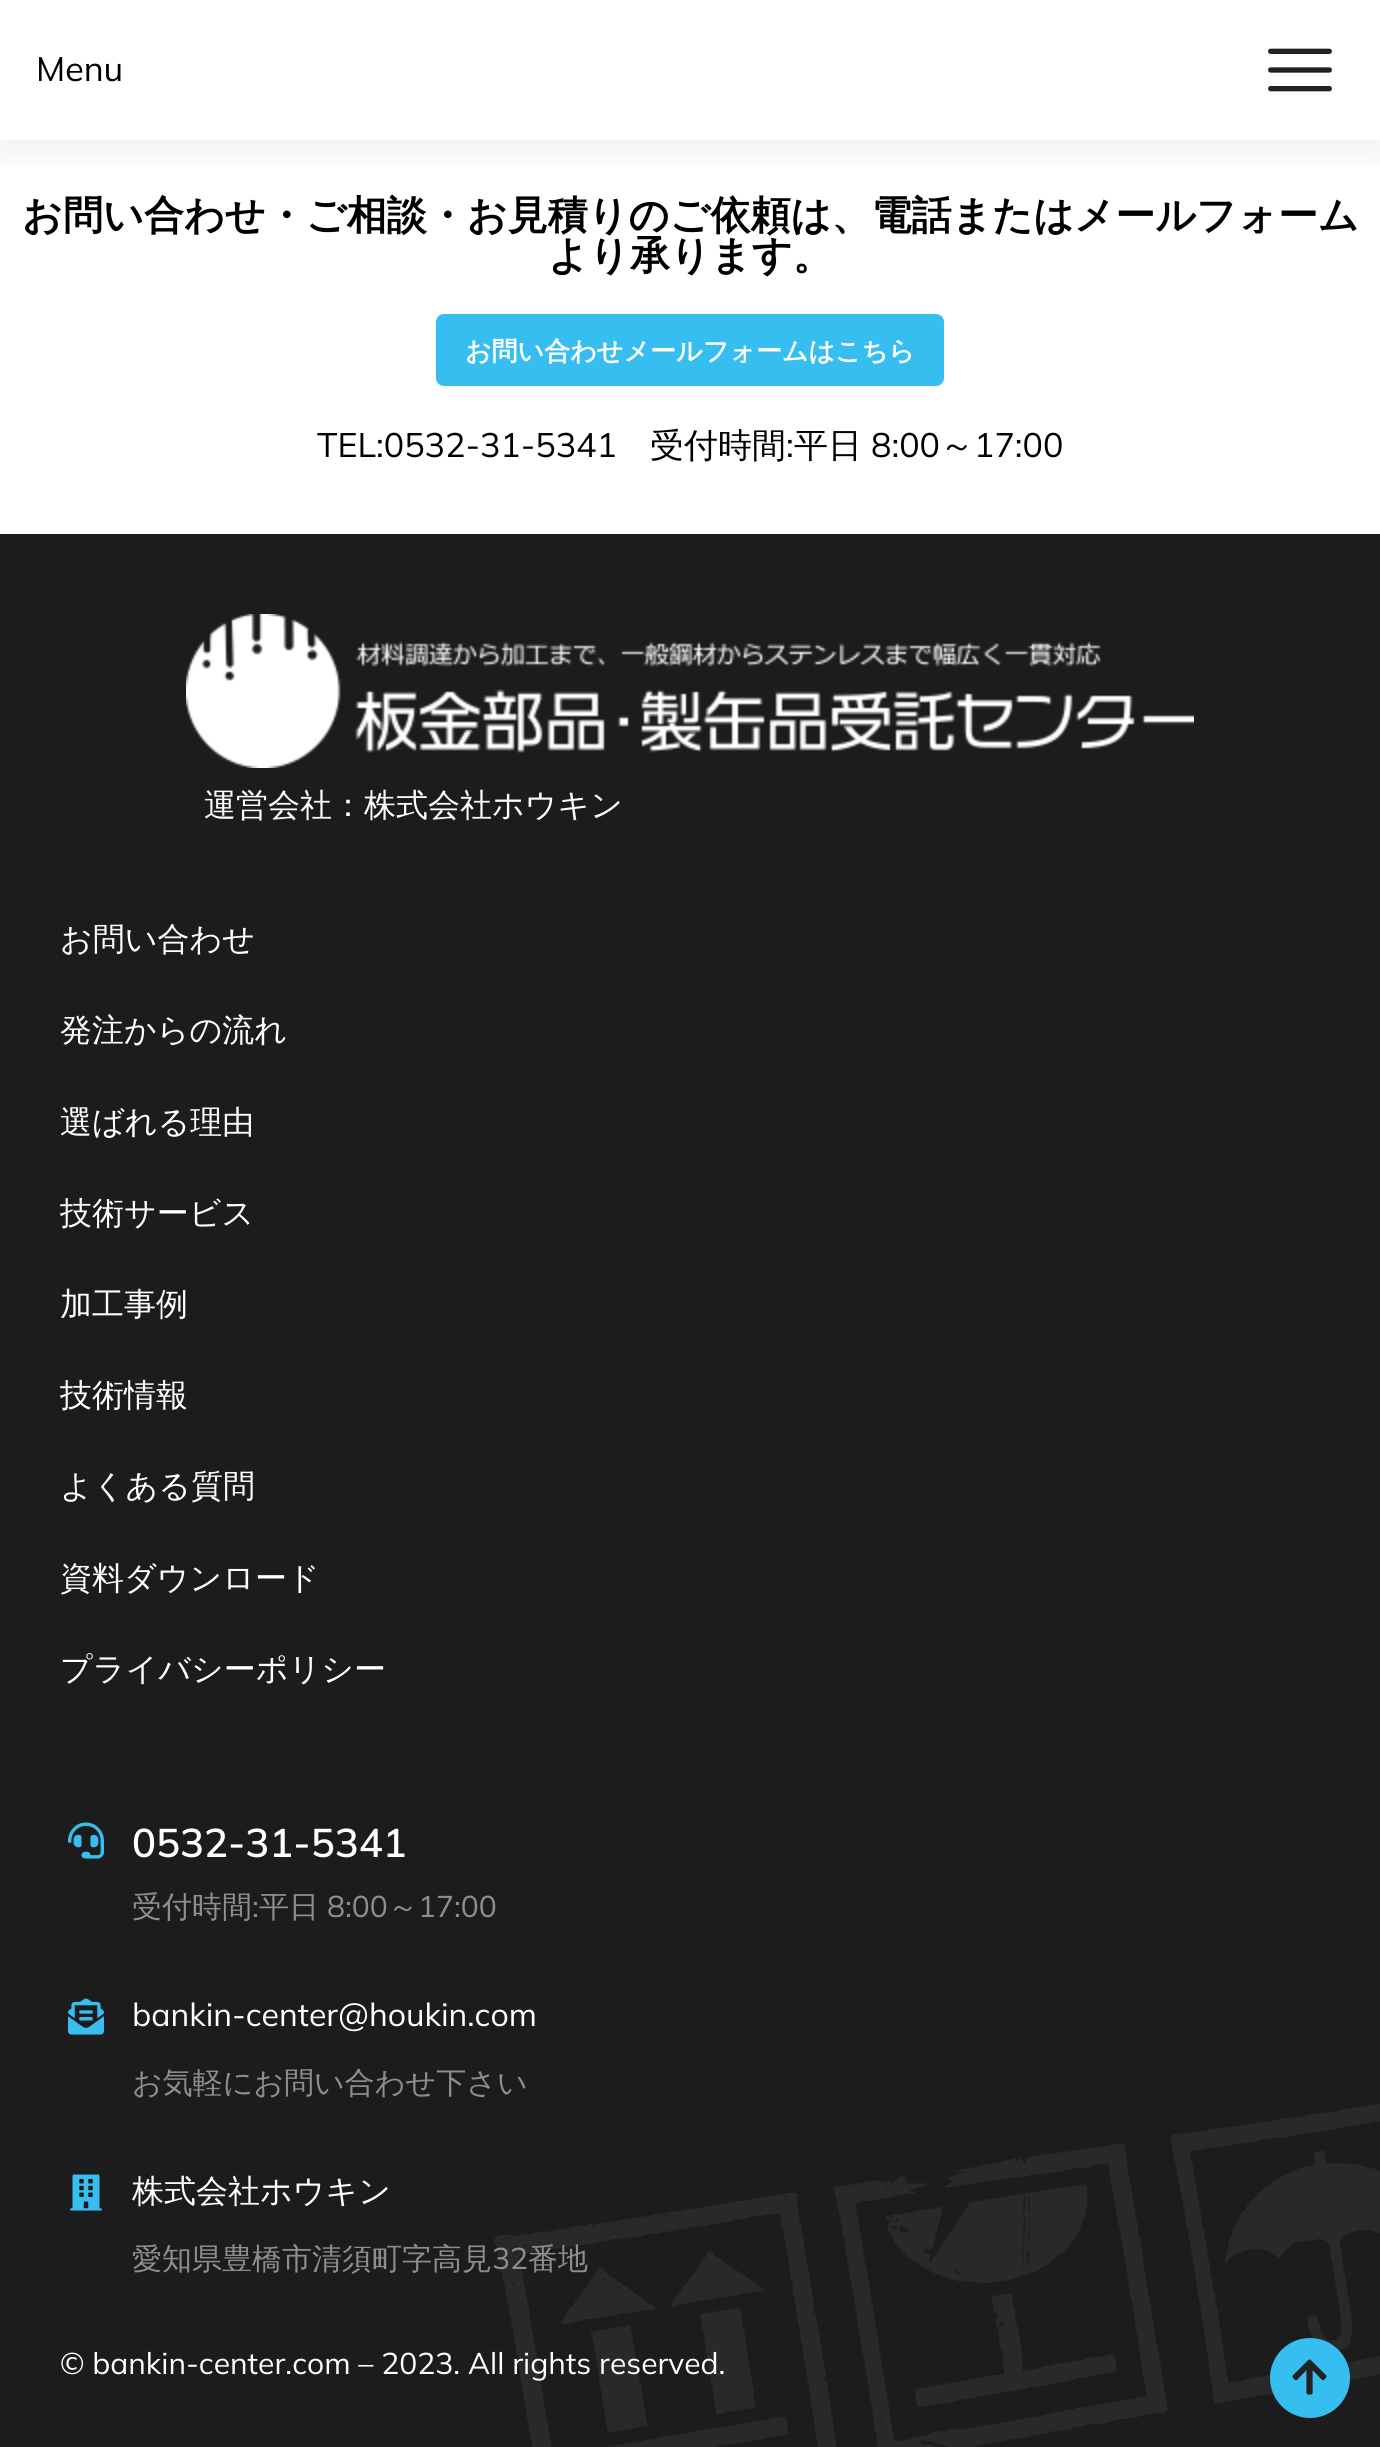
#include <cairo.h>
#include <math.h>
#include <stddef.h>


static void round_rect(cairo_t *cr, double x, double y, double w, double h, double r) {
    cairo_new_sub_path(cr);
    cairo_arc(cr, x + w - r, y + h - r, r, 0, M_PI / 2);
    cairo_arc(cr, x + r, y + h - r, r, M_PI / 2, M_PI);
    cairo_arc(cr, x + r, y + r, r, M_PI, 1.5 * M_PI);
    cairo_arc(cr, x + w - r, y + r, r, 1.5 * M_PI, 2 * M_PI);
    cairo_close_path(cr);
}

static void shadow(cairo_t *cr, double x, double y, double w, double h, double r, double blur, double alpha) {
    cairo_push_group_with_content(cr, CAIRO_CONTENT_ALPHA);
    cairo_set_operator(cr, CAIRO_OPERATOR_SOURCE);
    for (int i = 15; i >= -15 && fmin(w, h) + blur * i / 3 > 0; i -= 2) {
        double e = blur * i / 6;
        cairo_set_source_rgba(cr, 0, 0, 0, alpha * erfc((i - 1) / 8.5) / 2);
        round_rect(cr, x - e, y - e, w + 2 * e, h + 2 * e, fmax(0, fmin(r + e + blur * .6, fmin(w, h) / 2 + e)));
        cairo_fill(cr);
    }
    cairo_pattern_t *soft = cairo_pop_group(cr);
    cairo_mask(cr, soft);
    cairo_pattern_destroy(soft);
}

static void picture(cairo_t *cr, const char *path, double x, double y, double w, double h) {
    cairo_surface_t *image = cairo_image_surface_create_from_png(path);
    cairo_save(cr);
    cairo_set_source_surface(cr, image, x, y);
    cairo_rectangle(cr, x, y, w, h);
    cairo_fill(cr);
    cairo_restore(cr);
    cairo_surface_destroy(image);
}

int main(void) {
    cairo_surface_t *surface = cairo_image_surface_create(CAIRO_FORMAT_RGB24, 1380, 2447);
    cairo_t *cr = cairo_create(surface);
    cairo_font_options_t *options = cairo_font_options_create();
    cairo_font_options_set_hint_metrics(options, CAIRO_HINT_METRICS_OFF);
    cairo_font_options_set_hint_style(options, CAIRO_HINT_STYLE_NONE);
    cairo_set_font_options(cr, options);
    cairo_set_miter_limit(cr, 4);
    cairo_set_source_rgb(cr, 1, 1, 1);
    cairo_paint(cr);
    cairo_save(cr);
    cairo_rectangle(cr, 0, 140, 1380, 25);
    cairo_clip(cr);
    cairo_set_source_rgb(cr, 0, 0, 0);
    shadow(cr, 0, 0, 1380, 140, 0, 30, 0.1);
    cairo_restore(cr);
    cairo_select_font_face(cr, "Mulish", CAIRO_FONT_SLANT_NORMAL, CAIRO_FONT_WEIGHT_NORMAL);
    cairo_set_font_size(cr, 34);
    cairo_set_source_rgb(cr, 0, 0, 0);
    cairo_move_to(cr, 36, 81);
    cairo_show_text(cr, "Menu");
    picture(cr, "img1.png", 1268, 48, 64, 44);
    cairo_select_font_face(cr, "WenQuanYi Zen Hei", CAIRO_FONT_SLANT_NORMAL, CAIRO_FONT_WEIGHT_BOLD);
    cairo_set_font_size(cr, 40);
    cairo_move_to(cr, 22, 229);
    cairo_show_text(cr, "お問い合わせ・ご相談・お見積りのご依頼は、電話またはメールフォーム");
    cairo_move_to(cr, 548, 269);
    cairo_show_text(cr, "より承ります。");
    cairo_set_source_rgb(cr, 0.216, 0.745, 0.941);
    round_rect(cr, 436, 314, 508, 72, 8);
    cairo_fill(cr);
    cairo_set_font_size(cr, 26);
    cairo_set_source_rgb(cr, 1, 1, 1);
    cairo_move_to(cr, 465, 360);
    cairo_show_text(cr, "お問い合わせメールフォームはこちら");
    cairo_select_font_face(cr, "Mulish", CAIRO_FONT_SLANT_NORMAL, CAIRO_FONT_WEIGHT_NORMAL);
    cairo_set_font_size(cr, 34);
    cairo_set_source_rgb(cr, 0, 0, 0);
    cairo_move_to(cr, 317, 457);
    cairo_show_text(cr, "TEL:0532-31-5341");
    cairo_select_font_face(cr, "WenQuanYi Zen Hei Medium", CAIRO_FONT_SLANT_NORMAL, CAIRO_FONT_WEIGHT_NORMAL);
    cairo_move_to(cr, 650, 457);
    cairo_show_text(cr, "受付時間");
    cairo_select_font_face(cr, "Mulish", CAIRO_FONT_SLANT_NORMAL, CAIRO_FONT_WEIGHT_NORMAL);
    cairo_move_to(cr, 786, 457);
    cairo_show_text(cr, ":");
    cairo_select_font_face(cr, "WenQuanYi Zen Hei Medium", CAIRO_FONT_SLANT_NORMAL, CAIRO_FONT_WEIGHT_NORMAL);
    cairo_move_to(cr, 794, 457);
    cairo_show_text(cr, "平日");
    cairo_select_font_face(cr, "Mulish", CAIRO_FONT_SLANT_NORMAL, CAIRO_FONT_WEIGHT_NORMAL);
    cairo_move_to(cr, 871, 457);
    cairo_show_text(cr, "8:00");
    cairo_select_font_face(cr, "WenQuanYi Zen Hei Medium", CAIRO_FONT_SLANT_NORMAL, CAIRO_FONT_WEIGHT_NORMAL);
    cairo_move_to(cr, 940, 457);
    cairo_show_text(cr, "～");
    cairo_select_font_face(cr, "Mulish", CAIRO_FONT_SLANT_NORMAL, CAIRO_FONT_WEIGHT_NORMAL);
    cairo_move_to(cr, 974, 457);
    cairo_show_text(cr, "17:00");
    cairo_set_source_rgb(cr, 0.11, 0.11, 0.11);
    cairo_rectangle(cr, 0, 534, 1380, 1913);
    cairo_fill(cr);
    picture(cr, "img2.png", 186, 614, 1008, 154);
    cairo_select_font_face(cr, "WenQuanYi Zen Hei Medium", CAIRO_FONT_SLANT_NORMAL, CAIRO_FONT_WEIGHT_NORMAL);
    cairo_set_font_size(cr, 32);
    cairo_set_source_rgb(cr, 1, 1, 1);
    cairo_move_to(cr, 204, 816);
    cairo_show_text(cr, "運営会社：株式会社ホウキン");
    cairo_move_to(cr, 60, 950);
    cairo_show_text(cr, "お問い合わせ");
    cairo_move_to(cr, 60, 1041);
    cairo_show_text(cr, "発注からの流れ");
    cairo_move_to(cr, 60, 1133);
    cairo_show_text(cr, "選ばれる理由");
    cairo_move_to(cr, 60, 1224);
    cairo_show_text(cr, "技術サービス");
    cairo_move_to(cr, 60, 1315);
    cairo_show_text(cr, "加工事例");
    cairo_move_to(cr, 60, 1406);
    cairo_show_text(cr, "技術情報");
    cairo_move_to(cr, 60, 1497);
    cairo_show_text(cr, "よくある質問");
    cairo_move_to(cr, 60, 1589);
    cairo_show_text(cr, "資料ダウンロード");
    cairo_move_to(cr, 60, 1680);
    cairo_show_text(cr, "プライバシーポリシー");
    picture(cr, "img3.png", 68, 1822, 36, 37);
    cairo_select_font_face(cr, "Mulish SemiBold", CAIRO_FONT_SLANT_NORMAL, CAIRO_FONT_WEIGHT_NORMAL);
    cairo_set_font_size(cr, 40);
    cairo_move_to(cr, 132, 1857);
    cairo_show_text(cr, "0532-31-5341");
    cairo_select_font_face(cr, "WenQuanYi Zen Hei Medium", CAIRO_FONT_SLANT_NORMAL, CAIRO_FONT_WEIGHT_NORMAL);
    cairo_set_font_size(cr, 30);
    cairo_set_source_rgb(cr, 0.557, 0.557, 0.557);
    cairo_move_to(cr, 132, 1917);
    cairo_show_text(cr, "受付時間");
    cairo_select_font_face(cr, "Mulish", CAIRO_FONT_SLANT_NORMAL, CAIRO_FONT_WEIGHT_NORMAL);
    cairo_move_to(cr, 252, 1917);
    cairo_show_text(cr, ":");
    cairo_select_font_face(cr, "WenQuanYi Zen Hei Medium", CAIRO_FONT_SLANT_NORMAL, CAIRO_FONT_WEIGHT_NORMAL);
    cairo_move_to(cr, 259, 1917);
    cairo_show_text(cr, "平日");
    cairo_select_font_face(cr, "Mulish", CAIRO_FONT_SLANT_NORMAL, CAIRO_FONT_WEIGHT_NORMAL);
    cairo_move_to(cr, 327, 1917);
    cairo_show_text(cr, "8:00");
    cairo_select_font_face(cr, "WenQuanYi Zen Hei Medium", CAIRO_FONT_SLANT_NORMAL, CAIRO_FONT_WEIGHT_NORMAL);
    cairo_move_to(cr, 388, 1917);
    cairo_show_text(cr, "～");
    cairo_select_font_face(cr, "Mulish", CAIRO_FONT_SLANT_NORMAL, CAIRO_FONT_WEIGHT_NORMAL);
    cairo_move_to(cr, 418, 1917);
    cairo_show_text(cr, "17:00");
    picture(cr, "img4.png", 68, 1998, 36, 37);
    cairo_set_font_size(cr, 32);
    cairo_set_source_rgb(cr, 1, 1, 1);
    cairo_move_to(cr, 132, 2026);
    cairo_show_text(cr, "bankin-center@houkin.com");
    cairo_select_font_face(cr, "WenQuanYi Zen Hei Medium", CAIRO_FONT_SLANT_NORMAL, CAIRO_FONT_WEIGHT_NORMAL);
    cairo_set_font_size(cr, 30);
    cairo_set_source_rgb(cr, 0.557, 0.557, 0.557);
    cairo_move_to(cr, 132, 2093);
    cairo_show_text(cr, "お気軽にお問い合わせ下さい");
    picture(cr, "img5.png", 70, 2174, 32, 37);
    cairo_set_font_size(cr, 32);
    cairo_set_source_rgb(cr, 1, 1, 1);
    cairo_move_to(cr, 132, 2202);
    cairo_show_text(cr, "株式会社ホウキン");
    cairo_set_font_size(cr, 30);
    cairo_set_source_rgb(cr, 0.557, 0.557, 0.557);
    cairo_move_to(cr, 132, 2269);
    cairo_show_text(cr, "愛知県豊橋市清須町字高見");
    picture(cr, "img6.png", 494, 2104, 886, 343);
    cairo_select_font_face(cr, "Mulish", CAIRO_FONT_SLANT_NORMAL, CAIRO_FONT_WEIGHT_NORMAL);
    cairo_move_to(cr, 492, 2269);
    cairo_show_text(cr, "32");
    cairo_select_font_face(cr, "WenQuanYi Zen Hei Medium", CAIRO_FONT_SLANT_NORMAL, CAIRO_FONT_WEIGHT_NORMAL);
    cairo_move_to(cr, 528, 2269);
    cairo_show_text(cr, "番地");
    cairo_select_font_face(cr, "Mulish", CAIRO_FONT_SLANT_NORMAL, CAIRO_FONT_WEIGHT_NORMAL);
    cairo_set_source_rgb(cr, 1, 1, 1);
    cairo_move_to(cr, 60, 2374);
    cairo_show_text(cr, "© bankin-center.com – 2023. All rights reserved.");
    cairo_set_source_rgb(cr, 0.216, 0.745, 0.941);
    cairo_new_path(cr);
    cairo_arc(cr, 1310, 2378, 40, 0, 2 * M_PI);
    cairo_fill(cr);
    picture(cr, "img7.png", 1292, 2359, 35, 36);
    cairo_surface_write_to_png(surface, "page.png");
    cairo_font_options_destroy(options);
    cairo_destroy(cr);
    cairo_surface_destroy(surface);
    return 0;
}
